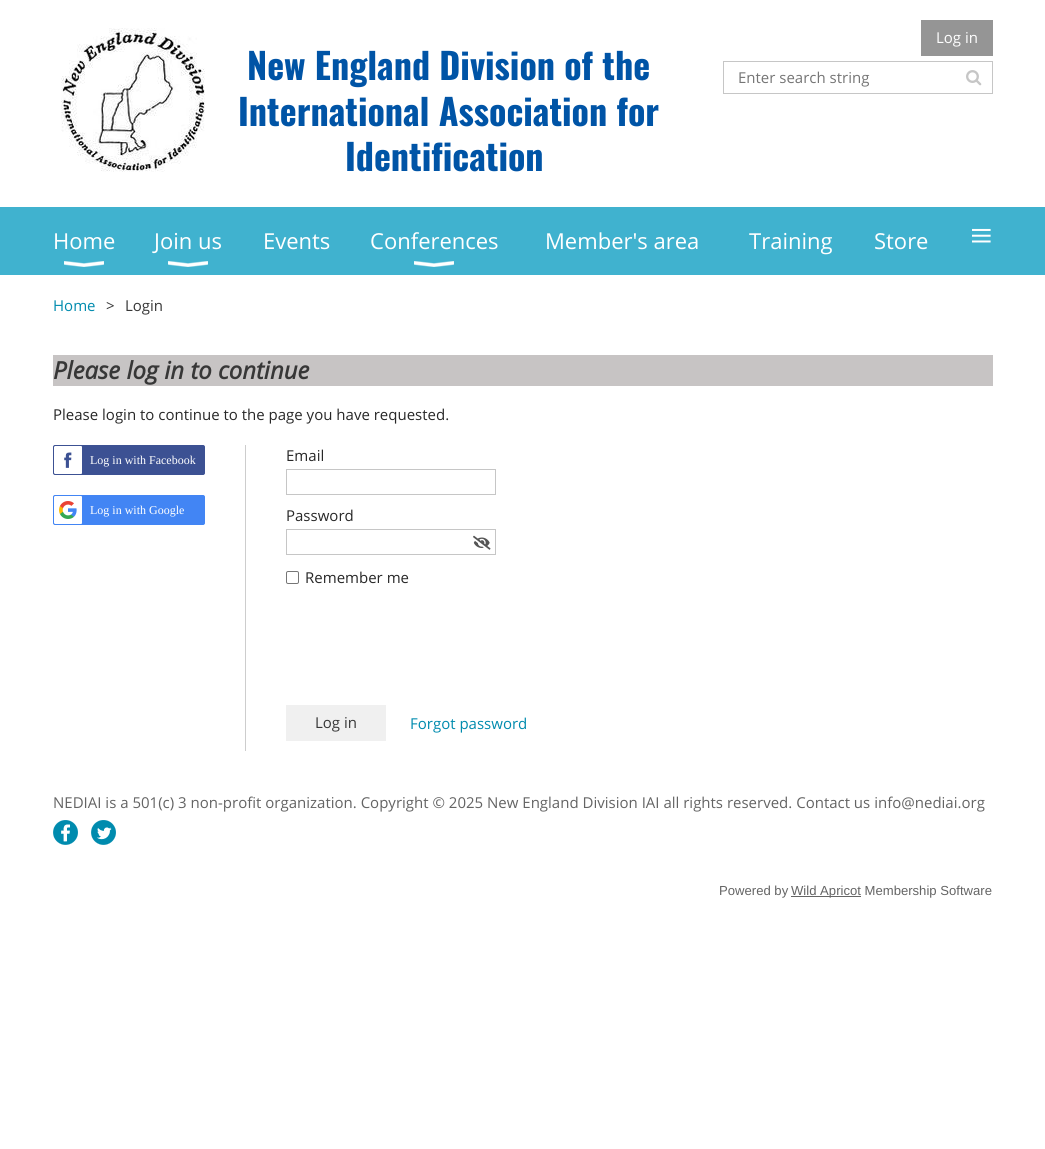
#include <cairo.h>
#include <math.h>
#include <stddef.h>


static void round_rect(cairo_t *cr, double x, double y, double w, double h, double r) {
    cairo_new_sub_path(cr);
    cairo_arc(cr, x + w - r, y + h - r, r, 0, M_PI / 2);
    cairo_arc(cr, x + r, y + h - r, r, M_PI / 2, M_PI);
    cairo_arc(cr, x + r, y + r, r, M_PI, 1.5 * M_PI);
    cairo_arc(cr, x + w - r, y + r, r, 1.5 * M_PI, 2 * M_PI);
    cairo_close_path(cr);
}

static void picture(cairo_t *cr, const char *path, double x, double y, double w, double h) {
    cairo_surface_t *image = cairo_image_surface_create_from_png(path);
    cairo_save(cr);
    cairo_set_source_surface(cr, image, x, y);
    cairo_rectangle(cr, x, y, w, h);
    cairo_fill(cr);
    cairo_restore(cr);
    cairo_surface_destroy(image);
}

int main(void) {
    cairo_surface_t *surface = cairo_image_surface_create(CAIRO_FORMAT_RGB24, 1045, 1149);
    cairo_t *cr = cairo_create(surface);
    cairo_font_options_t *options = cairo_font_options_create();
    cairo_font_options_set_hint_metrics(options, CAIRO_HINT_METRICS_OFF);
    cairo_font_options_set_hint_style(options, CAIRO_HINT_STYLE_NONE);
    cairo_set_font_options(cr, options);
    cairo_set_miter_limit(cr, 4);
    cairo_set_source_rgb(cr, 1, 1, 1);
    cairo_paint(cr);
    picture(cr, "img1.png", 61, 28, 144, 144);
    cairo_select_font_face(cr, "Oswald", CAIRO_FONT_SLANT_NORMAL, CAIRO_FONT_WEIGHT_BOLD);
    cairo_set_font_size(cr, 36);
    cairo_set_source_rgb(cr, 0, 0.329, 0.651);
    cairo_move_to(cr, 247, 80);
    cairo_show_text(cr, "New England Division of the");
    cairo_move_to(cr, 238, 126);
    cairo_show_text(cr, "International Association for");
    cairo_move_to(cr, 345, 171);
    cairo_show_text(cr, "Identification");
    cairo_set_source_rgb(cr, 0.584, 0.584, 0.584);
    cairo_rectangle(cr, 921, 20, 72, 36);
    cairo_fill(cr);
    cairo_select_font_face(cr, "Open Sans", CAIRO_FONT_SLANT_NORMAL, CAIRO_FONT_WEIGHT_NORMAL);
    cairo_set_font_size(cr, 15);
    cairo_set_source_rgb(cr, 1, 1, 1);
    cairo_move_to(cr, 936, 43);
    cairo_show_text(cr, "Log in");
    cairo_rectangle(cr, 723.5, 61.5, 269, 32);
    cairo_set_source_rgb(cr, 0.776, 0.776, 0.776);
    cairo_set_line_width(cr, 1);
    cairo_stroke(cr);
    cairo_set_source_rgb(cr, 0.459, 0.459, 0.459);
    cairo_move_to(cr, 738, 83);
    cairo_show_text(cr, "Enter search string");
    picture(cr, "img2.png", 966, 70, 16, 16);
    cairo_set_source_rgb(cr, 0.251, 0.698, 0.812);
    cairo_rectangle(cr, 0, 207, 1045, 68);
    cairo_fill(cr);
    cairo_set_font_size(cr, 22);
    cairo_set_source_rgb(cr, 1, 1, 1);
    cairo_move_to(cr, 53, 249);
    cairo_show_text(cr, "Home");
    picture(cr, "img3.png", 64, 261, 40, 6);
    cairo_move_to(cr, 154, 249);
    cairo_show_text(cr, "Join us");
    picture(cr, "img3.png", 168, 261, 40, 6);
    cairo_move_to(cr, 263, 249);
    cairo_show_text(cr, "Events");
    cairo_move_to(cr, 370, 249);
    cairo_show_text(cr, "Conferences");
    picture(cr, "img3.png", 414, 261, 40, 6);
    cairo_move_to(cr, 545, 249);
    cairo_show_text(cr, "Member's area");
    cairo_move_to(cr, 749, 249);
    cairo_show_text(cr, "Training");
    cairo_move_to(cr, 874, 249);
    cairo_show_text(cr, "Store");
    cairo_select_font_face(cr, "Liberation Serif", CAIRO_FONT_SLANT_NORMAL, CAIRO_FONT_WEIGHT_NORMAL);
    cairo_set_font_size(cr, 40);
    cairo_move_to(cr, 970, 249);
    cairo_show_text(cr, "≡");
    cairo_select_font_face(cr, "Open Sans", CAIRO_FONT_SLANT_NORMAL, CAIRO_FONT_WEIGHT_NORMAL);
    cairo_set_font_size(cr, 15);
    cairo_set_source_rgb(cr, 0, 0.545, 0.682);
    cairo_move_to(cr, 53, 311);
    cairo_show_text(cr, "Home");
    cairo_set_source_rgb(cr, 0.216, 0.216, 0.216);
    cairo_move_to(cr, 106, 311);
    cairo_show_text(cr, ">");
    cairo_move_to(cr, 125, 311);
    cairo_show_text(cr, "Login");
    cairo_set_source_rgb(cr, 0.78, 0.769, 0.769);
    cairo_rectangle(cr, 53, 355, 940, 31);
    cairo_fill(cr);
    cairo_select_font_face(cr, "Open Sans", CAIRO_FONT_SLANT_ITALIC, CAIRO_FONT_WEIGHT_BOLD);
    cairo_set_font_size(cr, 24);
    cairo_set_source_rgb(cr, 0.216, 0.216, 0.216);
    cairo_move_to(cr, 53, 379);
    cairo_show_text(cr, "Please log in to continue");
    cairo_select_font_face(cr, "Open Sans", CAIRO_FONT_SLANT_NORMAL, CAIRO_FONT_WEIGHT_NORMAL);
    cairo_set_font_size(cr, 15);
    cairo_set_source_rgb(cr, 0.157, 0.157, 0.157);
    cairo_move_to(cr, 53, 420);
    cairo_show_text(cr, "Please login to continue to the page you have requested.");
    cairo_set_source_rgb(cr, 0.804, 0.804, 0.804);
    cairo_rectangle(cr, 245, 445, 1, 306);
    cairo_fill(cr);
    cairo_set_source_rgb(cr, 0.235, 0.318, 0.576);
    round_rect(cr, 53.5, 445.5, 151, 29, 1.5);
    cairo_fill_preserve(cr);
    cairo_stroke(cr);
    picture(cr, "img4.png", 54, 446, 28, 28);
    cairo_select_font_face(cr, "Liberation Serif", CAIRO_FONT_SLANT_NORMAL, CAIRO_FONT_WEIGHT_NORMAL);
    cairo_set_font_size(cr, 12);
    cairo_set_source_rgb(cr, 1, 1, 1);
    cairo_move_to(cr, 90, 464);
    cairo_show_text(cr, "Log in with Facebook");
    cairo_set_source_rgb(cr, 0.259, 0.522, 0.957);
    round_rect(cr, 53.5, 495.5, 151, 29, 1.5);
    cairo_fill_preserve(cr);
    cairo_stroke(cr);
    picture(cr, "img5.png", 54, 496, 28, 28);
    cairo_set_source_rgb(cr, 1, 1, 1);
    cairo_move_to(cr, 90, 514);
    cairo_show_text(cr, "Log in with Google");
    cairo_select_font_face(cr, "Open Sans", CAIRO_FONT_SLANT_NORMAL, CAIRO_FONT_WEIGHT_NORMAL);
    cairo_set_font_size(cr, 15);
    cairo_set_source_rgb(cr, 0.157, 0.157, 0.157);
    cairo_move_to(cr, 286, 461);
    cairo_show_text(cr, "Email");
    cairo_rectangle(cr, 286.5, 469.5, 209, 25);
    cairo_set_source_rgb(cr, 0.776, 0.776, 0.776);
    cairo_stroke(cr);
    cairo_set_source_rgb(cr, 0.157, 0.157, 0.157);
    cairo_move_to(cr, 286, 521);
    cairo_show_text(cr, "Password");
    cairo_rectangle(cr, 286.5, 529.5, 209, 25);
    cairo_set_source_rgb(cr, 0.776, 0.776, 0.776);
    cairo_stroke(cr);
    picture(cr, "img6.png", 473, 535, 18, 15);
    round_rect(cr, 286.5, 571.5, 12, 12, 1.5);
    cairo_set_source_rgb(cr, 0.463, 0.463, 0.463);
    cairo_stroke(cr);
    cairo_set_source_rgb(cr, 0.157, 0.157, 0.157);
    cairo_move_to(cr, 305, 583);
    cairo_show_text(cr, "Remember me");
    cairo_set_source_rgb(cr, 0.941, 0.941, 0.941);
    cairo_rectangle(cr, 286, 705, 100, 36);
    cairo_fill(cr);
    cairo_set_source_rgb(cr, 0.216, 0.216, 0.216);
    cairo_move_to(cr, 315, 728);
    cairo_show_text(cr, "Log in");
    cairo_set_source_rgb(cr, 0, 0.545, 0.682);
    cairo_move_to(cr, 410, 729);
    cairo_show_text(cr, "Forgot password");
    cairo_set_source_rgb(cr, 0.392, 0.392, 0.392);
    cairo_move_to(cr, 53, 808);
    cairo_show_text(cr, "NEDIAI is a 501(c) 3 non-profit organization. Copyright © 2025 New England Division IAI all rights reserved. Contact us info@nediai.org");
    picture(cr, "img7.png", 53, 820, 25, 25);
    picture(cr, "img8.png", 91, 820, 25, 25);
    cairo_select_font_face(cr, "Liberation Sans", CAIRO_FONT_SLANT_NORMAL, CAIRO_FONT_WEIGHT_NORMAL);
    cairo_set_font_size(cr, 13.1);
    cairo_move_to(cr, 719, 895);
    cairo_show_text(cr, "Powered by");
    cairo_rectangle(cr, 791, 896, 70, 1);
    cairo_fill(cr);
    cairo_move_to(cr, 791, 895);
    cairo_show_text(cr, "Wild Apricot Membership Software");
    cairo_surface_write_to_png(surface, "page.png");
    cairo_font_options_destroy(options);
    cairo_destroy(cr);
    cairo_surface_destroy(surface);
    return 0;
}
